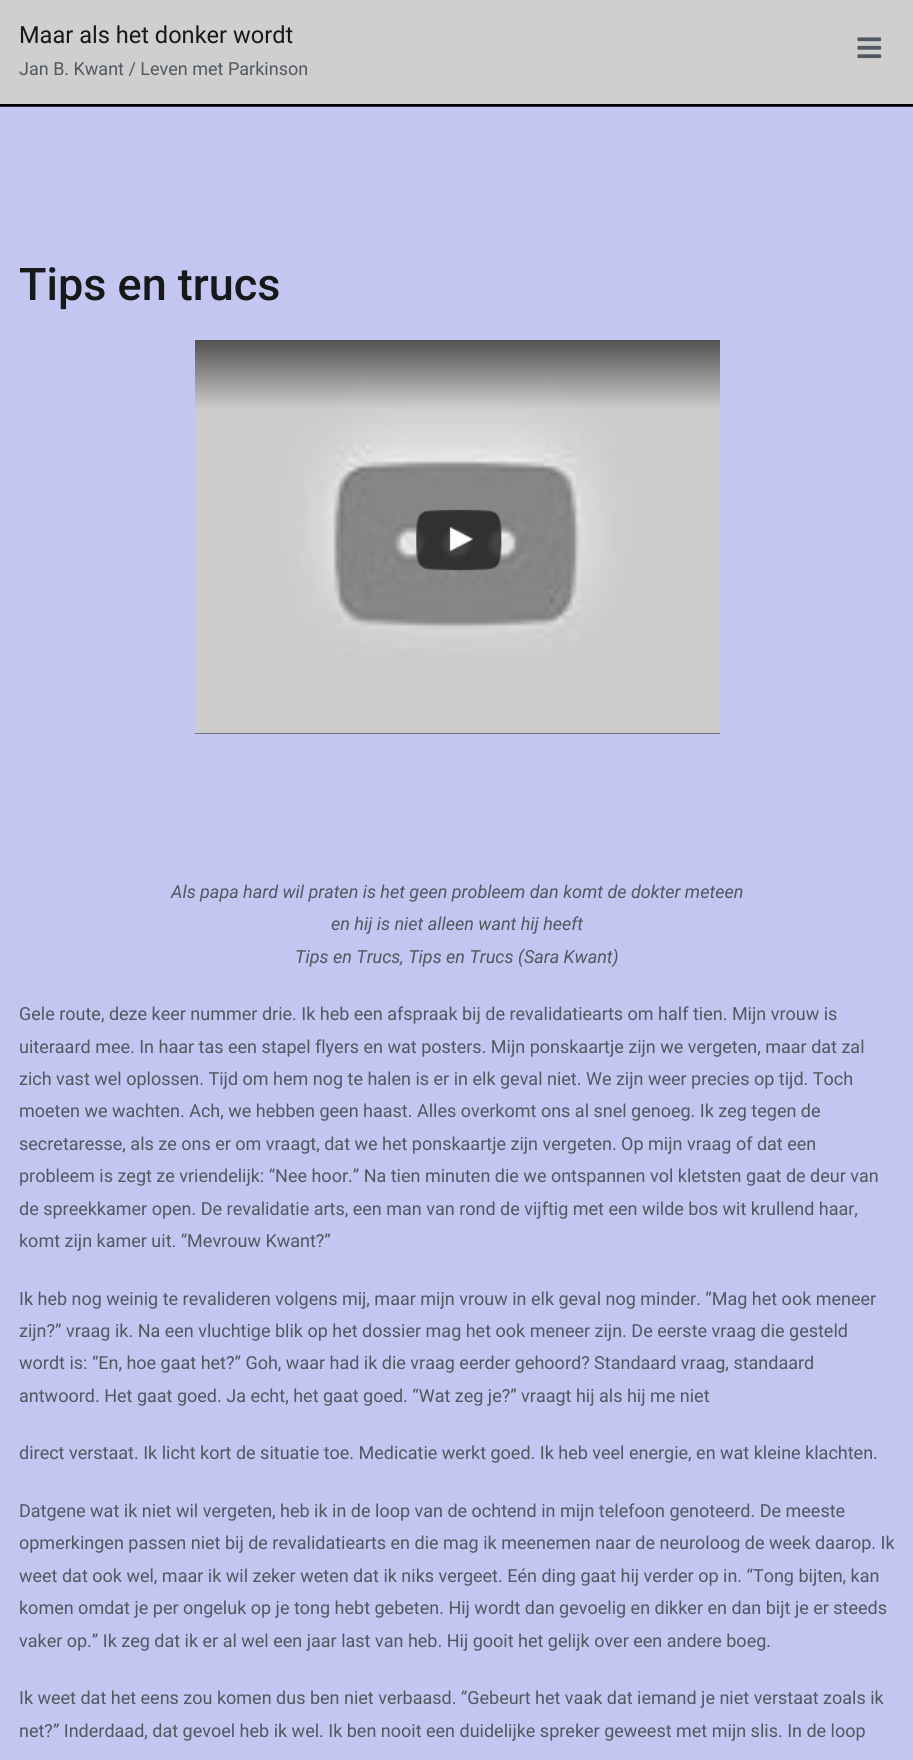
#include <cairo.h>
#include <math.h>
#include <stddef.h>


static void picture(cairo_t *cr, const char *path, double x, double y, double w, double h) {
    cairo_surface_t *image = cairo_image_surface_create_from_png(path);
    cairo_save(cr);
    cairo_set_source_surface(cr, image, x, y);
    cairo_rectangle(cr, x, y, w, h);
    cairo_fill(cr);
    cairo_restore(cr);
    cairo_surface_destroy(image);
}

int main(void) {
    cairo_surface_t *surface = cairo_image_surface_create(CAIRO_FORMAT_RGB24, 913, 1760);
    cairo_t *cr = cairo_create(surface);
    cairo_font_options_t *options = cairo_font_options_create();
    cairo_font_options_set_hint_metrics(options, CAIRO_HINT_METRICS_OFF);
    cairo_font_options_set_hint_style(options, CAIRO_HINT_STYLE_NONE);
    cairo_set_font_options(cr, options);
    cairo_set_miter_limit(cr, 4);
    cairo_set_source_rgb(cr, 0.765, 0.776, 0.945);
    cairo_paint(cr);
    cairo_set_source_rgb(cr, 0.812, 0.812, 0.812);
    cairo_rectangle(cr, 0, 0, 913, 104);
    cairo_fill(cr);
    cairo_set_source_rgb(cr, 0, 0, 0);
    cairo_rectangle(cr, 0, 104, 913, 2);
    cairo_fill(cr);
    cairo_set_source_rgb(cr, 0.141, 0.157, 0.325);
    cairo_rectangle(cr, 0, 106, 913, 1);
    cairo_fill(cr);
    cairo_select_font_face(cr, "Roboto", CAIRO_FONT_SLANT_NORMAL, CAIRO_FONT_WEIGHT_NORMAL);
    cairo_set_font_size(cr, 23.6);
    cairo_set_source_rgb(cr, 0.086, 0.094, 0.102);
    cairo_move_to(cr, 19, 43);
    cairo_show_text(cr, "Maar als het donker wordt");
    cairo_set_font_size(cr, 18);
    cairo_set_source_rgb(cr, 0.318, 0.345, 0.373);
    cairo_move_to(cr, 19, 75);
    cairo_show_text(cr, "Jan B. Kwant / Leven met Parkinson");
    picture(cr, "img1.png", 857, 37, 25, 22);
    cairo_select_font_face(cr, "Roboto Medium", CAIRO_FONT_SLANT_NORMAL, CAIRO_FONT_WEIGHT_NORMAL);
    cairo_set_font_size(cr, 45);
    cairo_set_source_rgb(cr, 0.086, 0.094, 0.102);
    cairo_move_to(cr, 19, 300);
    cairo_show_text(cr, "Tips en trucs");
    cairo_set_source_rgb(cr, 0, 0, 0);
    cairo_rectangle(cr, 195, 733, 525, 1);
    cairo_fill(cr);
    picture(cr, "img2.png", 195, 340, 525, 394);
    picture(cr, "img3.png", 416, 509, 86, 62);
    cairo_select_font_face(cr, "Roboto", CAIRO_FONT_SLANT_ITALIC, CAIRO_FONT_WEIGHT_NORMAL);
    cairo_set_font_size(cr, 18);
    cairo_set_source_rgb(cr, 0.318, 0.345, 0.373);
    cairo_move_to(cr, 171, 898);
    cairo_show_text(cr, "Als papa hard wil praten is het geen probleem dan komt de dokter meteen");
    cairo_move_to(cr, 331, 930);
    cairo_show_text(cr, "en hij is niet alleen want hij heeft");
    cairo_move_to(cr, 295, 963);
    cairo_show_text(cr, "Tips en Trucs, Tips en Trucs (Sara Kwant)");
    cairo_select_font_face(cr, "Roboto", CAIRO_FONT_SLANT_NORMAL, CAIRO_FONT_WEIGHT_NORMAL);
    cairo_move_to(cr, 19, 1020);
    cairo_show_text(cr, "Gele route, deze keer nummer drie. Ik heb een afspraak bij de revalidatiearts om half tien. Mijn vrouw is");
    cairo_move_to(cr, 19, 1053);
    cairo_show_text(cr, "uiteraard mee. In haar tas een stapel flyers en wat posters. Mijn ponskaartje zijn we vergeten, maar dat zal");
    cairo_move_to(cr, 19, 1085);
    cairo_show_text(cr, "zich vast wel oplossen. Tijd om hem nog te halen is er in elk geval niet. We zijn weer precies op tijd. Toch");
    cairo_move_to(cr, 19, 1117);
    cairo_show_text(cr, "moeten we wachten. Ach, we hebben geen haast. Alles overkomt ons al snel genoeg. Ik zeg tegen de");
    cairo_move_to(cr, 19, 1150);
    cairo_show_text(cr, "secretaresse, als ze ons er om vraagt, dat we het ponskaartje zijn vergeten. Op mijn vraag of dat een");
    cairo_move_to(cr, 19, 1182);
    cairo_show_text(cr, "probleem is zegt ze vriendelijk: “Nee hoor.” Na tien minuten die we ontspannen vol kletsten gaat de deur van");
    cairo_move_to(cr, 19, 1215);
    cairo_show_text(cr, "de spreekkamer open. De revalidatie arts, een man van rond de vijftig met een wilde bos wit krullend haar,");
    cairo_move_to(cr, 19, 1247);
    cairo_show_text(cr, "komt zijn kamer uit. “Mevrouw Kwant?”");
    cairo_move_to(cr, 19, 1305);
    cairo_show_text(cr, "Ik heb nog weinig te revalideren volgens mij, maar mijn vrouw in elk geval nog minder. “Mag het ook meneer");
    cairo_move_to(cr, 19, 1337);
    cairo_show_text(cr, "zijn?” vraag ik. Na een vluchtige blik op het dossier mag het ook meneer zijn. De eerste vraag die gesteld");
    cairo_move_to(cr, 19, 1369);
    cairo_show_text(cr, "wordt is: “En, hoe gaat het?” Goh, waar had ik die vraag eerder gehoord? Standaard vraag, standaard");
    cairo_move_to(cr, 19, 1402);
    cairo_show_text(cr, "antwoord. Het gaat goed. Ja echt, het gaat goed. “Wat zeg je?” vraagt hij als hij me niet");
    cairo_move_to(cr, 19, 1459);
    cairo_show_text(cr, "direct verstaat. Ik licht kort de situatie toe. Medicatie werkt goed. Ik heb veel energie, en wat kleine klachten.");
    cairo_move_to(cr, 19, 1517);
    cairo_show_text(cr, "Datgene wat ik niet wil vergeten, heb ik in de loop van de ochtend in mijn telefoon genoteerd. De meeste");
    cairo_move_to(cr, 19, 1549);
    cairo_show_text(cr, "opmerkingen passen niet bij de revalidatiearts en die mag ik meenemen naar de neuroloog de week daarop. Ik");
    cairo_move_to(cr, 19, 1582);
    cairo_show_text(cr, "weet dat ook wel, maar ik wil zeker weten dat ik niks vergeet. Eén ding gaat hij verder op in. “Tong bijten, kan");
    cairo_move_to(cr, 19, 1614);
    cairo_show_text(cr, "komen omdat je per ongeluk op je tong hebt gebeten. Hij wordt dan gevoelig en dikker en dan bijt je er steeds");
    cairo_move_to(cr, 19, 1647);
    cairo_show_text(cr, "vaker op.” Ik zeg dat ik er al wel een jaar last van heb. Hij gooit het gelijk over een andere boeg.");
    cairo_move_to(cr, 19, 1704);
    cairo_show_text(cr, "Ik weet dat het eens zou komen dus ben niet verbaasd. “Gebeurt het vaak dat iemand je niet verstaat zoals ik");
    cairo_move_to(cr, 19, 1737);
    cairo_show_text(cr, "net?” Inderdaad, dat gevoel heb ik wel. Ik ben nooit een duidelijke spreker geweest met mijn slis. In de loop");
    cairo_surface_write_to_png(surface, "page.png");
    cairo_font_options_destroy(options);
    cairo_destroy(cr);
    cairo_surface_destroy(surface);
    return 0;
}
